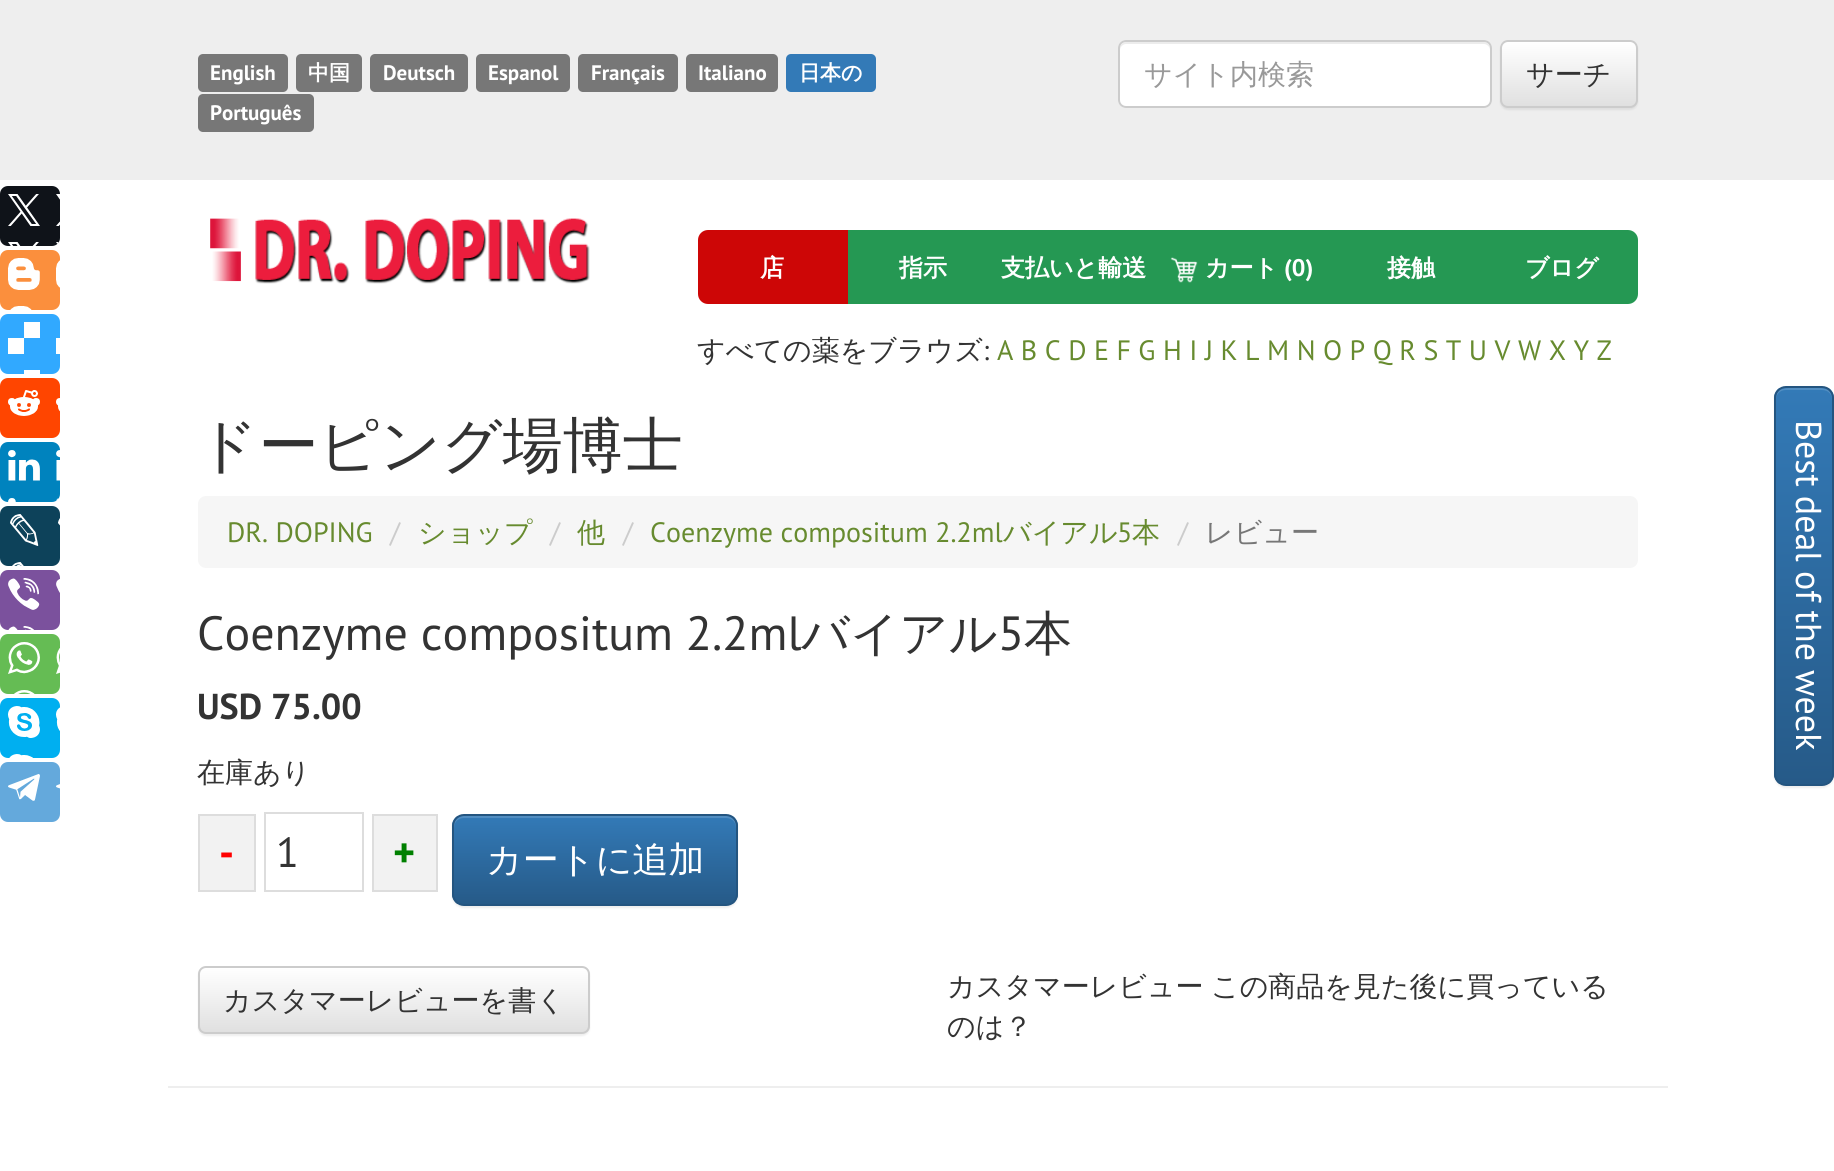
#include <cairo.h>
#include <math.h>
#include <stddef.h>


static void spaced_text(cairo_t *cr, double x, double y, const char *s, double letter, double word) {
    cairo_move_to(cr, x, y);
    while (*s) {
        char ch[5] = {0};
        int n = 0;
        do ch[n++] = *s++; while ((*s & 0xC0) == 0x80);
        cairo_show_text(cr, ch);
        cairo_rel_move_to(cr, letter + word * (*ch == ' '), 0);
    }
}

static void round_rect(cairo_t *cr, double x, double y, double w, double h, double r) {
    cairo_new_sub_path(cr);
    cairo_arc(cr, x + w - r, y + h - r, r, 0, M_PI / 2);
    cairo_arc(cr, x + r, y + h - r, r, M_PI / 2, M_PI);
    cairo_arc(cr, x + r, y + r, r, M_PI, 1.5 * M_PI);
    cairo_arc(cr, x + w - r, y + r, r, 1.5 * M_PI, 2 * M_PI);
    cairo_close_path(cr);
}

static void shadow(cairo_t *cr, double x, double y, double w, double h, double r, double blur, double alpha) {
    cairo_push_group_with_content(cr, CAIRO_CONTENT_ALPHA);
    cairo_set_operator(cr, CAIRO_OPERATOR_SOURCE);
    for (int i = 15; i >= -15 && fmin(w, h) + blur * i / 3 > 0; i -= 2) {
        double e = blur * i / 6;
        cairo_set_source_rgba(cr, 0, 0, 0, alpha * erfc((i - 1) / 8.5) / 2);
        round_rect(cr, x - e, y - e, w + 2 * e, h + 2 * e, fmax(0, fmin(r + e + blur * .6, fmin(w, h) / 2 + e)));
        cairo_fill(cr);
    }
    cairo_pattern_t *soft = cairo_pop_group(cr);
    cairo_mask(cr, soft);
    cairo_pattern_destroy(soft);
}

static void picture(cairo_t *cr, const char *path, double x, double y, double w, double h) {
    cairo_surface_t *image = cairo_image_surface_create_from_png(path);
    cairo_save(cr);
    cairo_set_source_surface(cr, image, x, y);
    cairo_rectangle(cr, x, y, w, h);
    cairo_fill(cr);
    cairo_restore(cr);
    cairo_surface_destroy(image);
}

int main(void) {
    cairo_surface_t *surface = cairo_image_surface_create(CAIRO_FORMAT_RGB24, 1834, 1171);
    cairo_t *cr = cairo_create(surface);
    cairo_font_options_t *options = cairo_font_options_create();
    cairo_font_options_set_hint_metrics(options, CAIRO_HINT_METRICS_OFF);
    cairo_font_options_set_hint_style(options, CAIRO_HINT_STYLE_NONE);
    cairo_set_font_options(cr, options);
    cairo_set_miter_limit(cr, 4);
    cairo_pattern_t *gradient;
    cairo_set_source_rgb(cr, 1, 1, 1);
    cairo_paint(cr);
    cairo_set_source_rgb(cr, 0.933, 0.933, 0.933);
    cairo_rectangle(cr, 0, 0, 1834, 180);
    cairo_fill(cr);
    cairo_set_source_rgb(cr, 0.467, 0.467, 0.467);
    round_rect(cr, 198, 54, 90, 38, 5);
    cairo_fill(cr);
    cairo_select_font_face(cr, "PT Sans", CAIRO_FONT_SLANT_NORMAL, CAIRO_FONT_WEIGHT_BOLD);
    cairo_set_font_size(cr, 21);
    cairo_set_source_rgb(cr, 1, 1, 1);
    cairo_move_to(cr, 210, 80);
    cairo_show_text(cr, "English");
    cairo_set_source_rgb(cr, 0.467, 0.467, 0.467);
    round_rect(cr, 296, 54, 66, 38, 5);
    cairo_fill(cr);
    cairo_select_font_face(cr, "WenQuanYi Zen Hei", CAIRO_FONT_SLANT_NORMAL, CAIRO_FONT_WEIGHT_BOLD);
    cairo_set_source_rgb(cr, 1, 1, 1);
    cairo_move_to(cr, 308, 80);
    cairo_show_text(cr, "中国");
    cairo_set_source_rgb(cr, 0.467, 0.467, 0.467);
    round_rect(cr, 370, 54, 98, 38, 5);
    cairo_fill(cr);
    cairo_select_font_face(cr, "PT Sans", CAIRO_FONT_SLANT_NORMAL, CAIRO_FONT_WEIGHT_BOLD);
    cairo_set_source_rgb(cr, 1, 1, 1);
    cairo_move_to(cr, 383, 80);
    cairo_show_text(cr, "Deutsch");
    cairo_set_source_rgb(cr, 0.467, 0.467, 0.467);
    round_rect(cr, 476, 54, 94, 38, 5);
    cairo_fill(cr);
    cairo_set_source_rgb(cr, 1, 1, 1);
    cairo_move_to(cr, 488, 80);
    cairo_show_text(cr, "Espanol");
    cairo_set_source_rgb(cr, 0.467, 0.467, 0.467);
    round_rect(cr, 578, 54, 100, 38, 5);
    cairo_fill(cr);
    cairo_set_source_rgb(cr, 1, 1, 1);
    cairo_move_to(cr, 591, 80);
    cairo_show_text(cr, "Français");
    cairo_set_source_rgb(cr, 0.467, 0.467, 0.467);
    round_rect(cr, 686, 54, 92, 38, 5);
    cairo_fill(cr);
    cairo_set_source_rgb(cr, 1, 1, 1);
    cairo_move_to(cr, 698, 80);
    cairo_show_text(cr, "Italiano");
    cairo_set_source_rgb(cr, 0.2, 0.478, 0.718);
    round_rect(cr, 786, 54, 90, 38, 5);
    cairo_fill(cr);
    cairo_select_font_face(cr, "WenQuanYi Zen Hei", CAIRO_FONT_SLANT_NORMAL, CAIRO_FONT_WEIGHT_BOLD);
    cairo_set_source_rgb(cr, 1, 1, 1);
    cairo_move_to(cr, 799, 80);
    cairo_show_text(cr, "日本の");
    cairo_set_source_rgb(cr, 0.467, 0.467, 0.467);
    round_rect(cr, 198, 94, 116, 38, 5);
    cairo_fill(cr);
    cairo_select_font_face(cr, "PT Sans", CAIRO_FONT_SLANT_NORMAL, CAIRO_FONT_WEIGHT_BOLD);
    cairo_set_source_rgb(cr, 1, 1, 1);
    cairo_move_to(cr, 210, 120);
    cairo_show_text(cr, "Português");
    round_rect(cr, 1118, 40, 374, 68, 8);
    cairo_fill(cr);
    cairo_set_source_rgb(cr, 0.925, 0.925, 0.925);
    cairo_new_path(cr);
    cairo_move_to(cr, 1126, 44);
    cairo_line_to(cr, 1484, 44);
    cairo_curve_to(cr, 1487, 44, 1490, 47, 1490, 50);
    cairo_line_to(cr, 1490, 48);
    cairo_curve_to(cr, 1490, 45, 1487, 42, 1484, 42);
    cairo_line_to(cr, 1126, 42);
    cairo_curve_to(cr, 1123, 42, 1120, 45, 1120, 48);
    cairo_line_to(cr, 1120, 50);
    cairo_curve_to(cr, 1120, 47, 1123, 44, 1126, 44);
    cairo_close_path(cr);
    cairo_fill(cr);
    round_rect(cr, 1119, 41, 372, 66, 7);
    cairo_set_source_rgb(cr, 0.8, 0.8, 0.8);
    cairo_stroke(cr);
    cairo_select_font_face(cr, "WenQuanYi Zen Hei Medium", CAIRO_FONT_SLANT_NORMAL, CAIRO_FONT_WEIGHT_NORMAL);
    cairo_set_font_size(cr, 28);
    cairo_set_source_rgb(cr, 0.6, 0.6, 0.6);
    cairo_move_to(cr, 1144, 84);
    cairo_show_text(cr, "サイト内検索");
    cairo_set_source_rgb(cr, 0, 0, 0);
    shadow(cr, 1500, 42, 138, 68, 8, 1, 0.07);
    cairo_save(cr);
    round_rect(cr, 1500, 40, 138, 68, 8);
    cairo_clip(cr);
    gradient = cairo_pattern_create_linear(1569, 42, 1569, 106);
    cairo_pattern_add_color_stop_rgba(gradient, 0, 1, 1, 1, 1);
    cairo_pattern_add_color_stop_rgba(gradient, 1, 0.878, 0.878, 0.878, 1);
    cairo_set_source(cr, gradient);
    cairo_pattern_destroy(gradient);
    cairo_rectangle(cr, 1500, 42, 138, 64);
    cairo_fill(cr);
    cairo_restore(cr);
    round_rect(cr, 1501, 41, 136, 66, 7);
    cairo_set_source_rgb(cr, 0.8, 0.8, 0.8);
    cairo_stroke(cr);
    cairo_set_source_rgb(cr, 0.2, 0.2, 0.2);
    cairo_move_to(cr, 1526, 84);
    cairo_show_text(cr, "サーチ");
    cairo_set_source_rgb(cr, 0.059, 0.078, 0.098);
    round_rect(cr, 0, 186, 60, 60, 8);
    cairo_fill(cr);
    picture(cr, "img1.png", 8, 194, 52, 52);
    cairo_set_source_rgb(cr, 0.984, 0.561, 0.239);
    round_rect(cr, 0, 250, 60, 60, 8);
    cairo_fill(cr);
    picture(cr, "img2.png", 8, 258, 52, 52);
    cairo_set_source_rgb(cr, 0.192, 0.663, 1);
    round_rect(cr, 0, 314, 60, 60, 8);
    cairo_fill(cr);
    picture(cr, "img3.png", 8, 322, 52, 52);
    cairo_set_source_rgb(cr, 1, 0.271, 0);
    round_rect(cr, 0, 378, 60, 60, 8);
    cairo_fill(cr);
    picture(cr, "img4.png", 8, 390, 52, 26);
    cairo_set_source_rgb(cr, 0, 0.514, 0.745);
    round_rect(cr, 0, 442, 60, 60, 8);
    cairo_fill(cr);
    picture(cr, "img5.png", 8, 450, 52, 52);
    cairo_set_source_rgb(cr, 0.051, 0.259, 0.353);
    round_rect(cr, 0, 506, 60, 60, 8);
    cairo_fill(cr);
    picture(cr, "img6.png", 10, 514, 50, 52);
    cairo_set_source_rgb(cr, 0.482, 0.318, 0.616);
    round_rect(cr, 0, 570, 60, 60, 8);
    cairo_fill(cr);
    picture(cr, "img7.png", 8, 578, 52, 52);
    cairo_set_source_rgb(cr, 0.396, 0.737, 0.329);
    round_rect(cr, 0, 634, 60, 60, 8);
    cairo_fill(cr);
    picture(cr, "img8.png", 8, 642, 52, 52);
    cairo_set_source_rgb(cr, 0, 0.686, 0.941);
    round_rect(cr, 0, 698, 60, 60, 8);
    cairo_fill(cr);
    picture(cr, "img9.png", 8, 706, 52, 52);
    cairo_set_source_rgb(cr, 0.392, 0.663, 0.863);
    round_rect(cr, 0, 762, 60, 60, 8);
    cairo_fill(cr);
    picture(cr, "img10.png", 8, 774, 52, 27);
    picture(cr, "img11.png", 210, 218, 380, 66);
    cairo_set_source_rgb(cr, 0.804, 0.027, 0.027);
    cairo_new_path(cr);
    cairo_move_to(cr, 708, 230);
    cairo_line_to(cr, 848, 230);
    cairo_line_to(cr, 848, 304);
    cairo_line_to(cr, 708, 304);
    cairo_curve_to(cr, 702.5, 304, 698, 299.5, 698, 294);
    cairo_line_to(cr, 698, 240);
    cairo_curve_to(cr, 698, 234.5, 702.5, 230, 708, 230);
    cairo_close_path(cr);
    cairo_fill(cr);
    cairo_select_font_face(cr, "WenQuanYi Zen Hei", CAIRO_FONT_SLANT_NORMAL, CAIRO_FONT_WEIGHT_BOLD);
    cairo_set_font_size(cr, 24);
    cairo_set_source_rgb(cr, 1, 1, 1);
    cairo_move_to(cr, 760, 276);
    cairo_show_text(cr, "店");
    cairo_set_source_rgb(cr, 0.145, 0.596, 0.325);
    cairo_rectangle(cr, 848, 230, 638, 74);
    cairo_fill(cr);
    cairo_set_source_rgb(cr, 1, 1, 1);
    cairo_move_to(cr, 899, 276);
    cairo_show_text(cr, "指示");
    cairo_move_to(cr, 1001, 276);
    cairo_show_text(cr, "支払いと輸送");
    picture(cr, "img12.png", 1170, 257, 28, 26);
    cairo_move_to(cr, 1205, 276);
    cairo_show_text(cr, "カート");
    cairo_select_font_face(cr, "PT Sans", CAIRO_FONT_SLANT_NORMAL, CAIRO_FONT_WEIGHT_BOLD);
    cairo_move_to(cr, 1284, 276);
    cairo_show_text(cr, "(0)");
    cairo_select_font_face(cr, "WenQuanYi Zen Hei", CAIRO_FONT_SLANT_NORMAL, CAIRO_FONT_WEIGHT_BOLD);
    cairo_move_to(cr, 1387, 276);
    cairo_show_text(cr, "接触");
    cairo_set_source_rgb(cr, 0.145, 0.596, 0.325);
    cairo_new_path(cr);
    cairo_move_to(cr, 1486, 230);
    cairo_line_to(cr, 1628, 230);
    cairo_curve_to(cr, 1633.5, 230, 1638, 234.5, 1638, 240);
    cairo_line_to(cr, 1638, 294);
    cairo_curve_to(cr, 1638, 299.5, 1633.5, 304, 1628, 304);
    cairo_line_to(cr, 1486, 304);
    cairo_close_path(cr);
    cairo_fill(cr);
    cairo_set_source_rgb(cr, 1, 1, 1);
    cairo_move_to(cr, 1525, 276);
    cairo_show_text(cr, "ブログ");
    cairo_select_font_face(cr, "WenQuanYi Zen Hei Medium", CAIRO_FONT_SLANT_NORMAL, CAIRO_FONT_WEIGHT_NORMAL);
    cairo_set_font_size(cr, 28);
    cairo_set_source_rgb(cr, 0.2, 0.2, 0.2);
    cairo_move_to(cr, 697, 360);
    cairo_show_text(cr, "すべての薬をブラウズ");
    cairo_select_font_face(cr, "PT Sans", CAIRO_FONT_SLANT_NORMAL, CAIRO_FONT_WEIGHT_NORMAL);
    cairo_move_to(cr, 983, 360);
    cairo_show_text(cr, ":");
    cairo_set_source_rgb(cr, 0.404, 0.545, 0.184);
    cairo_move_to(cr, 997, 360);
    cairo_show_text(cr, "A B C D E F G H I J K L M N O P Q R S T U V W X Y Z");
    cairo_select_font_face(cr, "WenQuanYi Zen Hei Medium", CAIRO_FONT_SLANT_NORMAL, CAIRO_FONT_WEIGHT_NORMAL);
    cairo_set_font_size(cr, 60);
    cairo_set_source_rgb(cr, 0.2, 0.2, 0.2);
    cairo_move_to(cr, 197, 466);
    cairo_show_text(cr, "ドーピング場博士");
    cairo_set_source_rgb(cr, 0.961, 0.961, 0.961);
    round_rect(cr, 198, 496, 1440, 72, 8);
    cairo_fill(cr);
    cairo_select_font_face(cr, "PT Sans", CAIRO_FONT_SLANT_NORMAL, CAIRO_FONT_WEIGHT_NORMAL);
    cairo_set_font_size(cr, 28);
    cairo_set_source_rgb(cr, 0.404, 0.545, 0.184);
    cairo_move_to(cr, 227, 542);
    cairo_show_text(cr, "DR. DOPING");
    cairo_set_source_rgb(cr, 0.8, 0.8, 0.8);
    cairo_move_to(cr, 390, 542);
    cairo_show_text(cr, "/");
    cairo_select_font_face(cr, "WenQuanYi Zen Hei Medium", CAIRO_FONT_SLANT_NORMAL, CAIRO_FONT_WEIGHT_NORMAL);
    cairo_set_source_rgb(cr, 0.404, 0.545, 0.184);
    cairo_move_to(cr, 418, 542);
    cairo_show_text(cr, "ショップ");
    cairo_select_font_face(cr, "PT Sans", CAIRO_FONT_SLANT_NORMAL, CAIRO_FONT_WEIGHT_NORMAL);
    cairo_set_source_rgb(cr, 0.8, 0.8, 0.8);
    cairo_move_to(cr, 550, 542);
    cairo_show_text(cr, "/");
    cairo_select_font_face(cr, "WenQuanYi Zen Hei Medium", CAIRO_FONT_SLANT_NORMAL, CAIRO_FONT_WEIGHT_NORMAL);
    cairo_set_source_rgb(cr, 0.404, 0.545, 0.184);
    cairo_move_to(cr, 577, 542);
    cairo_show_text(cr, "他");
    cairo_select_font_face(cr, "PT Sans", CAIRO_FONT_SLANT_NORMAL, CAIRO_FONT_WEIGHT_NORMAL);
    cairo_set_source_rgb(cr, 0.8, 0.8, 0.8);
    cairo_move_to(cr, 623, 542);
    cairo_show_text(cr, "/");
    cairo_set_source_rgb(cr, 0.404, 0.545, 0.184);
    cairo_move_to(cr, 650, 542);
    cairo_show_text(cr, "Coenzyme compositum 2.2ml");
    cairo_select_font_face(cr, "WenQuanYi Zen Hei Medium", CAIRO_FONT_SLANT_NORMAL, CAIRO_FONT_WEIGHT_NORMAL);
    cairo_move_to(cr, 1003, 542);
    cairo_show_text(cr, "バイアル");
    cairo_select_font_face(cr, "PT Sans", CAIRO_FONT_SLANT_NORMAL, CAIRO_FONT_WEIGHT_NORMAL);
    cairo_move_to(cr, 1117, 542);
    cairo_show_text(cr, "5");
    cairo_select_font_face(cr, "WenQuanYi Zen Hei Medium", CAIRO_FONT_SLANT_NORMAL, CAIRO_FONT_WEIGHT_NORMAL);
    cairo_move_to(cr, 1132, 542);
    cairo_show_text(cr, "本");
    cairo_select_font_face(cr, "PT Sans", CAIRO_FONT_SLANT_NORMAL, CAIRO_FONT_WEIGHT_NORMAL);
    cairo_set_source_rgb(cr, 0.8, 0.8, 0.8);
    cairo_move_to(cr, 1178, 542);
    cairo_show_text(cr, "/");
    cairo_select_font_face(cr, "WenQuanYi Zen Hei Medium", CAIRO_FONT_SLANT_NORMAL, CAIRO_FONT_WEIGHT_NORMAL);
    cairo_set_source_rgb(cr, 0.467, 0.467, 0.467);
    cairo_move_to(cr, 1205, 542);
    cairo_show_text(cr, "レビュー");
    cairo_select_font_face(cr, "PT Sans", CAIRO_FONT_SLANT_NORMAL, CAIRO_FONT_WEIGHT_NORMAL);
    cairo_set_font_size(cr, 48);
    cairo_set_source_rgb(cr, 0.2, 0.2, 0.2);
    cairo_move_to(cr, 197, 650);
    cairo_show_text(cr, "Coenzyme compositum 2.2ml");
    cairo_select_font_face(cr, "WenQuanYi Zen Hei Medium", CAIRO_FONT_SLANT_NORMAL, CAIRO_FONT_WEIGHT_NORMAL);
    cairo_move_to(cr, 801, 650);
    cairo_show_text(cr, "バイアル");
    cairo_select_font_face(cr, "PT Sans", CAIRO_FONT_SLANT_NORMAL, CAIRO_FONT_WEIGHT_NORMAL);
    cairo_move_to(cr, 998, 650);
    cairo_show_text(cr, "5");
    cairo_select_font_face(cr, "WenQuanYi Zen Hei Medium", CAIRO_FONT_SLANT_NORMAL, CAIRO_FONT_WEIGHT_NORMAL);
    cairo_move_to(cr, 1024, 650);
    cairo_show_text(cr, "本");
    cairo_select_font_face(cr, "PT Sans", CAIRO_FONT_SLANT_NORMAL, CAIRO_FONT_WEIGHT_BOLD);
    cairo_set_font_size(cr, 36);
    cairo_move_to(cr, 197, 719);
    cairo_show_text(cr, "USD 75.00");
    cairo_select_font_face(cr, "WenQuanYi Zen Hei Medium", CAIRO_FONT_SLANT_NORMAL, CAIRO_FONT_WEIGHT_NORMAL);
    cairo_set_font_size(cr, 28);
    cairo_move_to(cr, 197, 782);
    cairo_show_text(cr, "在庫あり");
    cairo_set_source_rgb(cr, 0.949, 0.949, 0.949);
    cairo_rectangle(cr, 199, 815, 56, 76);
    cairo_fill_preserve(cr);
    cairo_set_source_rgb(cr, 0.867, 0.867, 0.867);
    cairo_stroke(cr);
    cairo_select_font_face(cr, "PT Sans", CAIRO_FONT_SLANT_NORMAL, CAIRO_FONT_WEIGHT_BOLD);
    cairo_set_font_size(cr, 42);
    cairo_set_source_rgb(cr, 1, 0, 0);
    cairo_move_to(cr, 219, 867);
    cairo_show_text(cr, "-");
    cairo_rectangle(cr, 265, 813, 98, 78);
    cairo_set_source_rgb(cr, 0.867, 0.867, 0.867);
    cairo_stroke(cr);
    cairo_select_font_face(cr, "PT Sans", CAIRO_FONT_SLANT_NORMAL, CAIRO_FONT_WEIGHT_NORMAL);
    cairo_set_source_rgb(cr, 0.2, 0.2, 0.2);
    cairo_move_to(cr, 276, 867);
    cairo_show_text(cr, "1");
    cairo_set_source_rgb(cr, 0.949, 0.949, 0.949);
    cairo_rectangle(cr, 373, 815, 64, 76);
    cairo_fill_preserve(cr);
    cairo_set_source_rgb(cr, 0.867, 0.867, 0.867);
    cairo_stroke(cr);
    cairo_select_font_face(cr, "PT Sans", CAIRO_FONT_SLANT_NORMAL, CAIRO_FONT_WEIGHT_BOLD);
    cairo_set_source_rgb(cr, 0, 0.502, 0);
    cairo_move_to(cr, 393, 867);
    cairo_show_text(cr, "+");
    cairo_set_source_rgb(cr, 0, 0, 0);
    shadow(cr, 452, 816, 286, 92, 12, 1, 0.07);
    cairo_save(cr);
    round_rect(cr, 452, 814, 286, 92, 12);
    cairo_clip(cr);
    gradient = cairo_pattern_create_linear(595, 816, 595, 904);
    cairo_pattern_add_color_stop_rgba(gradient, 0, 0.2, 0.478, 0.718, 1);
    cairo_pattern_add_color_stop_rgba(gradient, 1, 0.149, 0.353, 0.533, 1);
    cairo_set_source(cr, gradient);
    cairo_pattern_destroy(gradient);
    cairo_rectangle(cr, 452, 816, 286, 88);
    cairo_fill(cr);
    cairo_restore(cr);
    cairo_set_source_rgba(cr, 1, 1, 1, 0.15);
    cairo_new_path(cr);
    cairo_move_to(cr, 464, 818);
    cairo_line_to(cr, 726, 818);
    cairo_curve_to(cr, 732, 818, 736, 822, 736, 828);
    cairo_line_to(cr, 736, 826);
    cairo_curve_to(cr, 736, 820, 732, 816, 726, 816);
    cairo_line_to(cr, 464, 816);
    cairo_curve_to(cr, 458, 816, 454, 820, 454, 826);
    cairo_line_to(cr, 454, 828);
    cairo_curve_to(cr, 454, 822, 458, 818, 464, 818);
    cairo_close_path(cr);
    cairo_fill(cr);
    round_rect(cr, 453, 815, 284, 90, 11);
    cairo_set_source_rgb(cr, 0.141, 0.333, 0.502);
    cairo_stroke(cr);
    cairo_select_font_face(cr, "WenQuanYi Zen Hei Medium", CAIRO_FONT_SLANT_NORMAL, CAIRO_FONT_WEIGHT_NORMAL);
    cairo_set_font_size(cr, 36);
    cairo_set_source_rgb(cr, 1, 1, 1);
    cairo_move_to(cr, 486, 872);
    cairo_show_text(cr, "カートに追加");
    cairo_set_source_rgb(cr, 0, 0, 0);
    shadow(cr, 198, 968, 392, 68, 8, 1, 0.07);
    cairo_save(cr);
    round_rect(cr, 198, 966, 392, 68, 8);
    cairo_clip(cr);
    gradient = cairo_pattern_create_linear(394, 968, 394, 1032);
    cairo_pattern_add_color_stop_rgba(gradient, 0, 1, 1, 1, 1);
    cairo_pattern_add_color_stop_rgba(gradient, 1, 0.878, 0.878, 0.878, 1);
    cairo_set_source(cr, gradient);
    cairo_pattern_destroy(gradient);
    cairo_rectangle(cr, 198, 968, 392, 64);
    cairo_fill(cr);
    cairo_restore(cr);
    round_rect(cr, 199, 967, 390, 66, 7);
    cairo_set_source_rgb(cr, 0.8, 0.8, 0.8);
    cairo_stroke(cr);
    cairo_set_font_size(cr, 28);
    cairo_set_source_rgb(cr, 0.2, 0.2, 0.2);
    cairo_move_to(cr, 223, 1010);
    cairo_show_text(cr, "カスタマーレビューを書く");
    spaced_text(cr, 947, 996, "カスタマーレビュー この商品を見た後に買っている", 0, -1);
    cairo_move_to(cr, 947, 1036);
    cairo_show_text(cr, "のは？");
    cairo_set_source_rgb(cr, 0.933, 0.933, 0.933);
    cairo_rectangle(cr, 168, 1086, 1500, 2);
    cairo_fill(cr);
    cairo_set_source_rgb(cr, 0, 0, 0);
    shadow(cr, 1774, 388, 60, 400, 12, 1, 0.07);
    cairo_save(cr);
    round_rect(cr, 1774, 386, 60, 400, 12);
    cairo_clip(cr);
    gradient = cairo_pattern_create_linear(1804, 388, 1804, 784);
    cairo_pattern_add_color_stop_rgba(gradient, 0, 0.2, 0.478, 0.718, 1);
    cairo_pattern_add_color_stop_rgba(gradient, 1, 0.149, 0.353, 0.533, 1);
    cairo_set_source(cr, gradient);
    cairo_pattern_destroy(gradient);
    cairo_rectangle(cr, 1774, 388, 60, 396);
    cairo_fill(cr);
    cairo_restore(cr);
    cairo_set_source_rgb(cr, 0.322, 0.557, 0.761);
    cairo_new_path(cr);
    cairo_move_to(cr, 1786, 390);
    cairo_line_to(cr, 1822, 390);
    cairo_curve_to(cr, 1828, 390, 1832, 394, 1832, 400);
    cairo_curve_to(cr, 1832, 389, 1826, 388, 1816, 388);
    cairo_line_to(cr, 1792, 388);
    cairo_curve_to(cr, 1782, 388, 1776, 389, 1776, 400);
    cairo_curve_to(cr, 1776, 394, 1780, 390, 1786, 390);
    cairo_close_path(cr);
    cairo_fill(cr);
    round_rect(cr, 1775, 387, 58, 398, 11);
    cairo_set_source_rgb(cr, 0.141, 0.333, 0.502);
    cairo_stroke(cr);
    cairo_select_font_face(cr, "PT Sans", CAIRO_FONT_SLANT_NORMAL, CAIRO_FONT_WEIGHT_NORMAL);
    cairo_set_font_size(cr, 36);
    cairo_set_source_rgb(cr, 1, 1, 1);
    cairo_save(cr);
    cairo_translate(cr, 1796, 420);
    cairo_rotate(cr, 90 * M_PI / 180);
    spaced_text(cr, 0, 0, "Best deal of the week", 0, -0.5);
    cairo_restore(cr);
    cairo_surface_write_to_png(surface, "page.png");
    cairo_font_options_destroy(options);
    cairo_destroy(cr);
    cairo_surface_destroy(surface);
    return 0;
}
